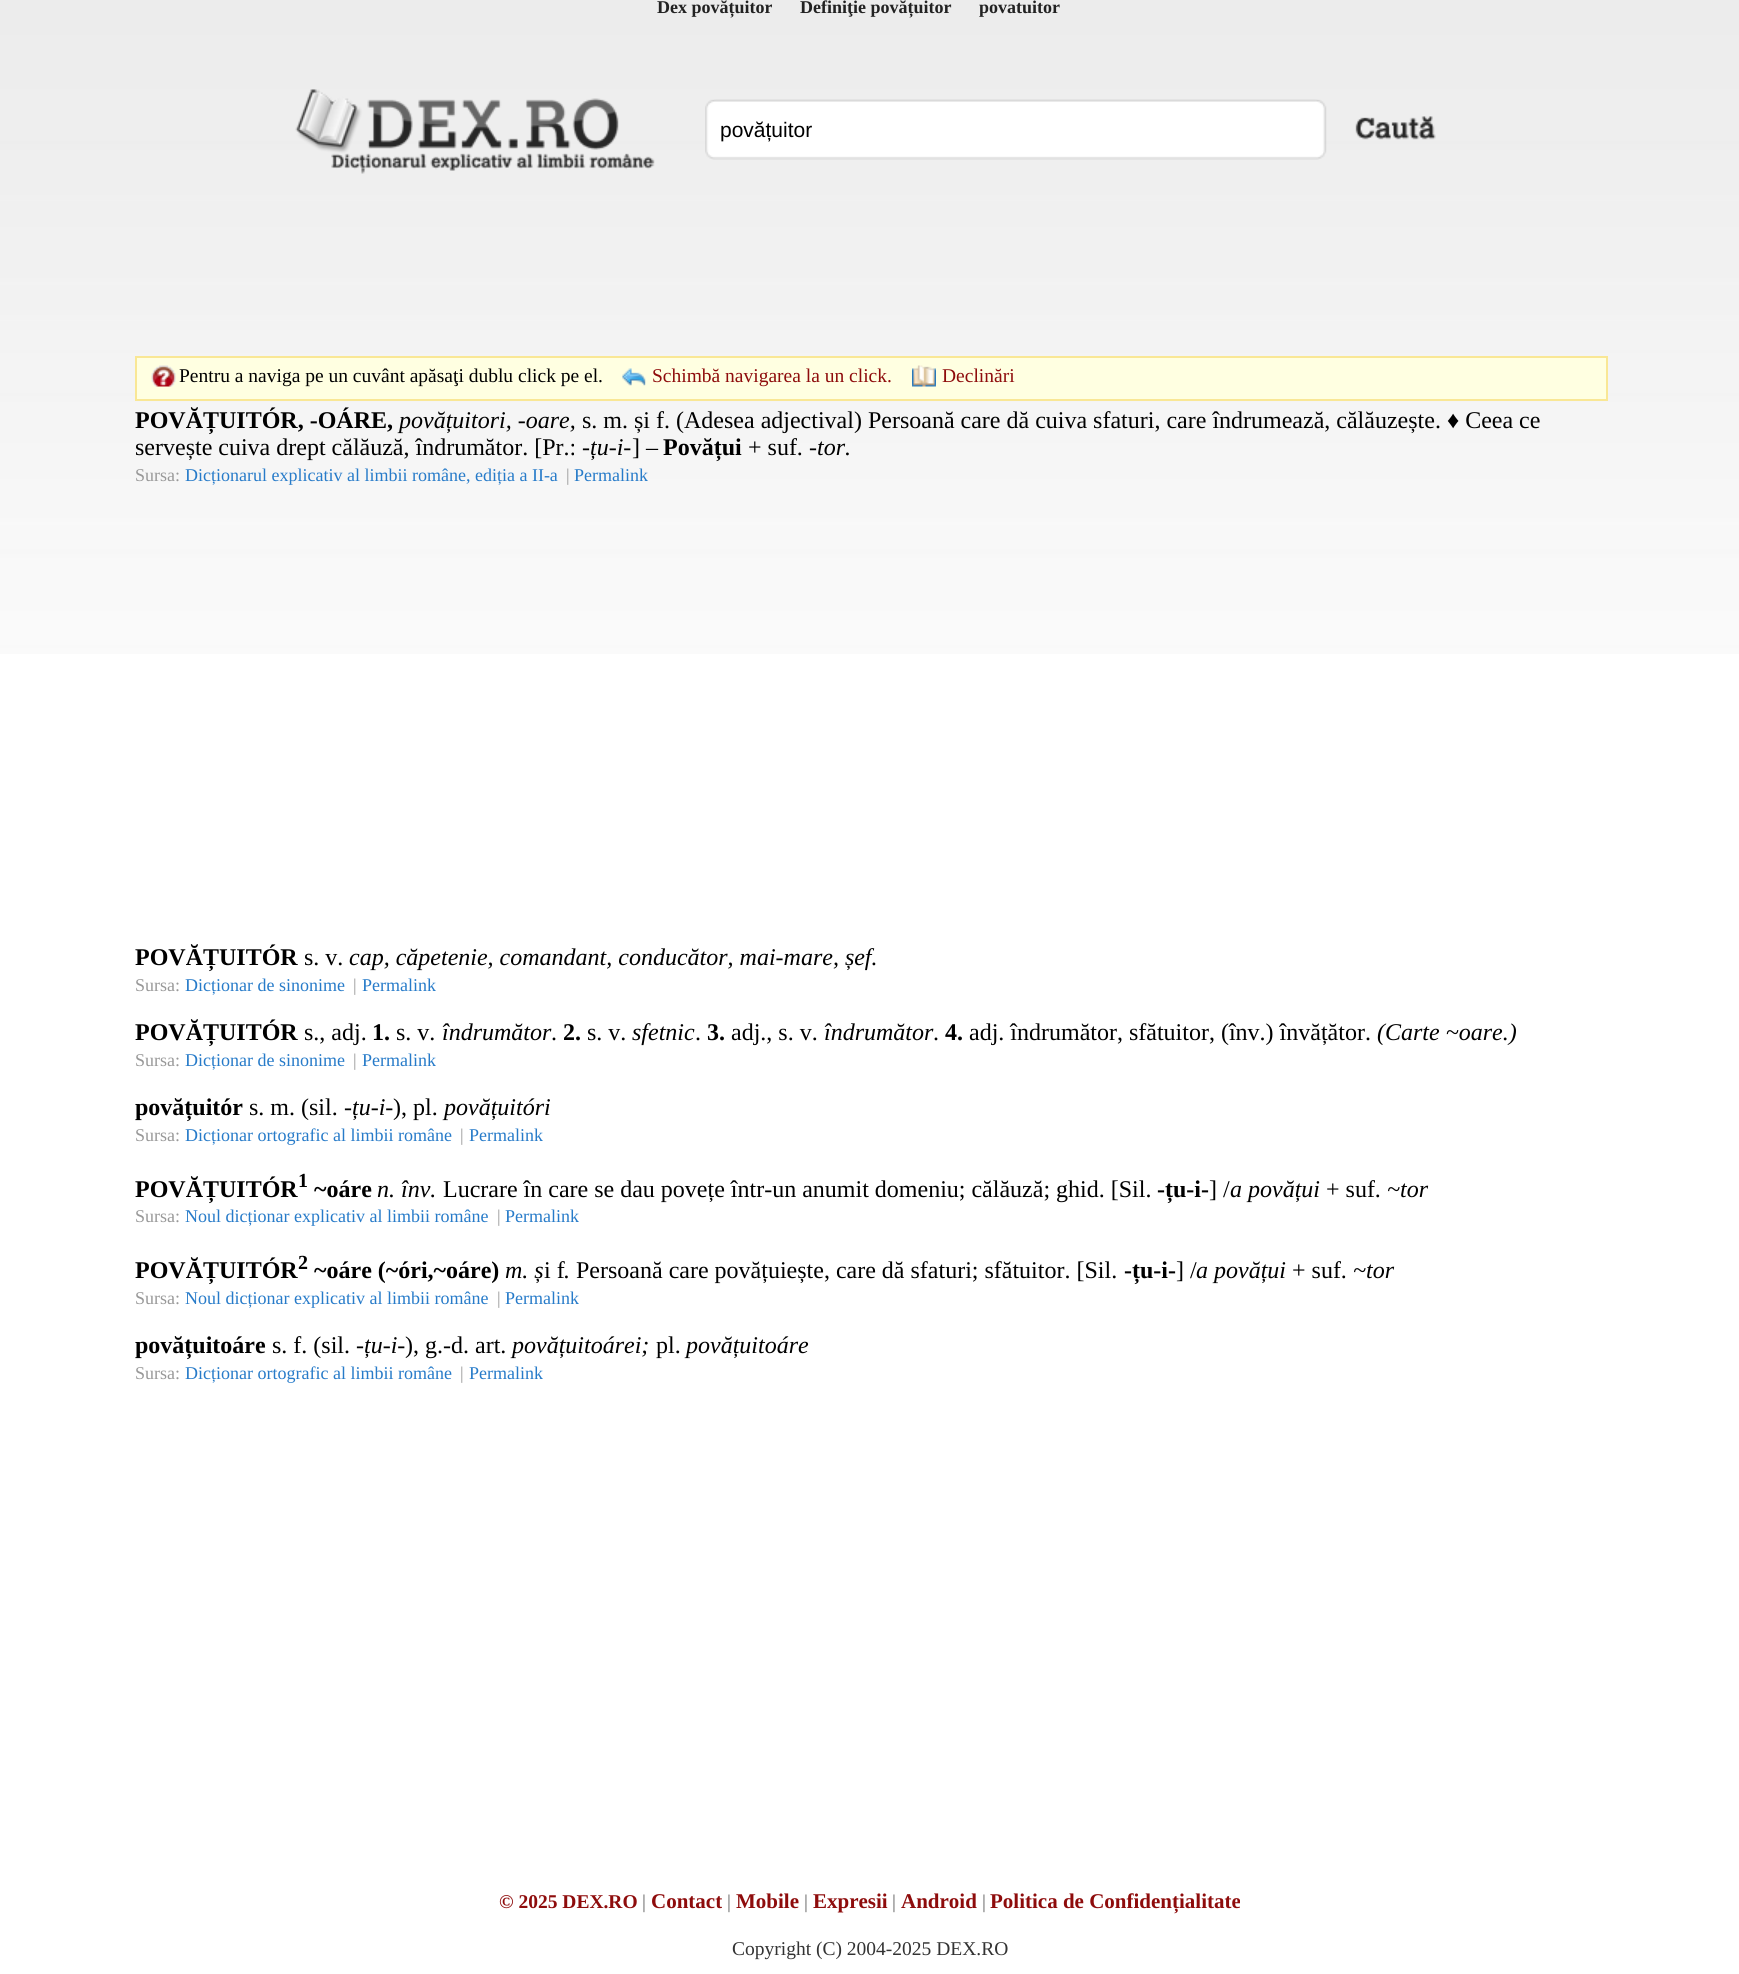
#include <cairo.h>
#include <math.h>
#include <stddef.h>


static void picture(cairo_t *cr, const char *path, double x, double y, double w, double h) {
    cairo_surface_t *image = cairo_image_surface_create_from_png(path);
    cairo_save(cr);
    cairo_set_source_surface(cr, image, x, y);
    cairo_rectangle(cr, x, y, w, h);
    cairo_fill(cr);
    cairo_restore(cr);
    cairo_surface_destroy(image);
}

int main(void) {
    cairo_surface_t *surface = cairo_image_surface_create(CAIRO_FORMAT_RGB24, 1739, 1974);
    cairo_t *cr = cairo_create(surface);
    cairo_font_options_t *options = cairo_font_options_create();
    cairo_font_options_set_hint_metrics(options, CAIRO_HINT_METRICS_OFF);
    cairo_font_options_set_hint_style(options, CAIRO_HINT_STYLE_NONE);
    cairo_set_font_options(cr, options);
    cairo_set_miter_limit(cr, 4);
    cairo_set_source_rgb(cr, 1, 1, 1);
    cairo_paint(cr);
    picture(cr, "img1.png", 0, 0, 1739, 654);
    cairo_select_font_face(cr, "Liberation Serif", CAIRO_FONT_SLANT_NORMAL, CAIRO_FONT_WEIGHT_BOLD);
    cairo_set_font_size(cr, 18);
    cairo_set_source_rgb(cr, 0.133, 0.133, 0.133);
    cairo_move_to(cr, 657, 13);
    cairo_show_text(cr, "Dex povățuitor");
    cairo_move_to(cr, 800, 13);
    cairo_show_text(cr, "Definiţie povățuitor");
    cairo_move_to(cr, 979, 13);
    cairo_show_text(cr, "povatuitor");
    picture(cr, "img2.png", 295, 89, 360, 85);
    picture(cr, "img3.png", 705, 99, 622, 61);
    cairo_set_source_rgb(cr, 1, 1, 1);
    cairo_rectangle(cr, 1322, 152, 1, 1);
    cairo_fill(cr);
    cairo_select_font_face(cr, "Liberation Sans", CAIRO_FONT_SLANT_NORMAL, CAIRO_FONT_WEIGHT_NORMAL);
    cairo_set_font_size(cr, 21);
    cairo_set_source_rgb(cr, 0, 0, 0);
    cairo_move_to(cr, 720, 137);
    cairo_show_text(cr, "povățuitor");
    picture(cr, "img4.png", 1355, 116, 81, 24);
    cairo_set_source_rgb(cr, 1, 1, 0.882);
    cairo_rectangle(cr, 136, 357, 1471, 43);
    cairo_fill_preserve(cr);
    cairo_set_source_rgb(cr, 0.976, 0.906, 0.584);
    cairo_stroke(cr);
    picture(cr, "img5.png", 151, 365, 25, 22);
    cairo_select_font_face(cr, "Liberation Serif", CAIRO_FONT_SLANT_NORMAL, CAIRO_FONT_WEIGHT_NORMAL);
    cairo_set_font_size(cr, 19.5);
    cairo_set_source_rgb(cr, 0, 0, 0);
    cairo_move_to(cr, 179, 382);
    cairo_show_text(cr, "Pentru a naviga pe un cuvânt apăsaţi dublu click pe el.");
    picture(cr, "img6.png", 622, 368, 24, 18);
    cairo_set_source_rgb(cr, 0.557, 0.047, 0.047);
    cairo_move_to(cr, 652, 382);
    cairo_show_text(cr, "Schimbă navigarea la un click.");
    picture(cr, "img7.png", 912, 365, 24, 22);
    cairo_move_to(cr, 942, 382);
    cairo_show_text(cr, "Declinări");
    cairo_select_font_face(cr, "Liberation Serif", CAIRO_FONT_SLANT_NORMAL, CAIRO_FONT_WEIGHT_BOLD);
    cairo_set_font_size(cr, 24);
    cairo_set_source_rgb(cr, 0, 0, 0);
    cairo_move_to(cr, 135, 428);
    cairo_show_text(cr, "POVĂȚUITÓR, -OÁRE,");
    cairo_select_font_face(cr, "Liberation Serif", CAIRO_FONT_SLANT_ITALIC, CAIRO_FONT_WEIGHT_NORMAL);
    cairo_move_to(cr, 399, 428);
    cairo_show_text(cr, "povățuitori, -oare,");
    cairo_select_font_face(cr, "Liberation Serif", CAIRO_FONT_SLANT_NORMAL, CAIRO_FONT_WEIGHT_NORMAL);
    cairo_move_to(cr, 582, 428);
    cairo_show_text(cr, "s. m. și f. (Adesea adjectival) Persoană care dă cuiva sfaturi, care îndrumează, călăuzește. ♦ Ceea ce");
    cairo_move_to(cr, 135, 455);
    cairo_show_text(cr, "servește cuiva drept călăuză, îndrumător. [Pr.:");
    cairo_select_font_face(cr, "Liberation Serif", CAIRO_FONT_SLANT_ITALIC, CAIRO_FONT_WEIGHT_NORMAL);
    cairo_move_to(cr, 582, 455);
    cairo_show_text(cr, "-țu-i-");
    cairo_select_font_face(cr, "Liberation Serif", CAIRO_FONT_SLANT_NORMAL, CAIRO_FONT_WEIGHT_NORMAL);
    cairo_move_to(cr, 632, 455);
    cairo_show_text(cr, "] –");
    cairo_select_font_face(cr, "Liberation Serif", CAIRO_FONT_SLANT_NORMAL, CAIRO_FONT_WEIGHT_BOLD);
    cairo_move_to(cr, 663, 455);
    cairo_show_text(cr, "Povățui");
    cairo_select_font_face(cr, "Liberation Serif", CAIRO_FONT_SLANT_NORMAL, CAIRO_FONT_WEIGHT_NORMAL);
    cairo_move_to(cr, 748, 455);
    cairo_show_text(cr, "+ suf.");
    cairo_select_font_face(cr, "Liberation Serif", CAIRO_FONT_SLANT_ITALIC, CAIRO_FONT_WEIGHT_NORMAL);
    cairo_move_to(cr, 809, 455);
    cairo_show_text(cr, "-tor.");
    cairo_select_font_face(cr, "Liberation Serif", CAIRO_FONT_SLANT_NORMAL, CAIRO_FONT_WEIGHT_NORMAL);
    cairo_set_font_size(cr, 18);
    cairo_set_source_rgb(cr, 0.6, 0.6, 0.6);
    cairo_move_to(cr, 135, 481);
    cairo_show_text(cr, "Sursa:");
    cairo_set_source_rgb(cr, 0.153, 0.482, 0.788);
    cairo_move_to(cr, 185, 481);
    cairo_show_text(cr, "Dicționarul explicativ al limbii române, ediția a II-a");
    cairo_set_source_rgb(cr, 0.6, 0.6, 0.6);
    cairo_move_to(cr, 566, 481);
    cairo_show_text(cr, "|");
    cairo_set_source_rgb(cr, 0.153, 0.482, 0.788);
    cairo_move_to(cr, 574, 481);
    cairo_show_text(cr, "Permalink");
    cairo_select_font_face(cr, "Liberation Serif", CAIRO_FONT_SLANT_NORMAL, CAIRO_FONT_WEIGHT_BOLD);
    cairo_set_font_size(cr, 24);
    cairo_set_source_rgb(cr, 0, 0, 0);
    cairo_move_to(cr, 135, 965);
    cairo_show_text(cr, "POVĂȚUITÓR");
    cairo_select_font_face(cr, "Liberation Serif", CAIRO_FONT_SLANT_NORMAL, CAIRO_FONT_WEIGHT_NORMAL);
    cairo_move_to(cr, 304, 965);
    cairo_show_text(cr, "s. v.");
    cairo_select_font_face(cr, "Liberation Serif", CAIRO_FONT_SLANT_ITALIC, CAIRO_FONT_WEIGHT_NORMAL);
    cairo_move_to(cr, 349, 965);
    cairo_show_text(cr, "cap, căpetenie, comandant, conducător, mai-mare, șef.");
    cairo_select_font_face(cr, "Liberation Serif", CAIRO_FONT_SLANT_NORMAL, CAIRO_FONT_WEIGHT_NORMAL);
    cairo_set_font_size(cr, 18);
    cairo_set_source_rgb(cr, 0.6, 0.6, 0.6);
    cairo_move_to(cr, 135, 991);
    cairo_show_text(cr, "Sursa:");
    cairo_set_source_rgb(cr, 0.153, 0.482, 0.788);
    cairo_move_to(cr, 185, 991);
    cairo_show_text(cr, "Dicționar de sinonime");
    cairo_set_source_rgb(cr, 0.6, 0.6, 0.6);
    cairo_move_to(cr, 353, 991);
    cairo_show_text(cr, "|");
    cairo_set_source_rgb(cr, 0.153, 0.482, 0.788);
    cairo_move_to(cr, 362, 991);
    cairo_show_text(cr, "Permalink");
    cairo_select_font_face(cr, "Liberation Serif", CAIRO_FONT_SLANT_NORMAL, CAIRO_FONT_WEIGHT_BOLD);
    cairo_set_font_size(cr, 24);
    cairo_set_source_rgb(cr, 0, 0, 0);
    cairo_move_to(cr, 135, 1040);
    cairo_show_text(cr, "POVĂȚUITÓR");
    cairo_select_font_face(cr, "Liberation Serif", CAIRO_FONT_SLANT_NORMAL, CAIRO_FONT_WEIGHT_NORMAL);
    cairo_move_to(cr, 304, 1040);
    cairo_show_text(cr, "s., adj.");
    cairo_select_font_face(cr, "Liberation Serif", CAIRO_FONT_SLANT_NORMAL, CAIRO_FONT_WEIGHT_BOLD);
    cairo_move_to(cr, 372, 1040);
    cairo_show_text(cr, "1.");
    cairo_select_font_face(cr, "Liberation Serif", CAIRO_FONT_SLANT_NORMAL, CAIRO_FONT_WEIGHT_NORMAL);
    cairo_move_to(cr, 396, 1040);
    cairo_show_text(cr, "s. v.");
    cairo_select_font_face(cr, "Liberation Serif", CAIRO_FONT_SLANT_ITALIC, CAIRO_FONT_WEIGHT_NORMAL);
    cairo_move_to(cr, 442, 1040);
    cairo_show_text(cr, "îndrumător");
    cairo_select_font_face(cr, "Liberation Serif", CAIRO_FONT_SLANT_NORMAL, CAIRO_FONT_WEIGHT_NORMAL);
    cairo_move_to(cr, 551, 1040);
    cairo_show_text(cr, ".");
    cairo_select_font_face(cr, "Liberation Serif", CAIRO_FONT_SLANT_NORMAL, CAIRO_FONT_WEIGHT_BOLD);
    cairo_move_to(cr, 563, 1040);
    cairo_show_text(cr, "2.");
    cairo_select_font_face(cr, "Liberation Serif", CAIRO_FONT_SLANT_NORMAL, CAIRO_FONT_WEIGHT_NORMAL);
    cairo_move_to(cr, 587, 1040);
    cairo_show_text(cr, "s. v.");
    cairo_select_font_face(cr, "Liberation Serif", CAIRO_FONT_SLANT_ITALIC, CAIRO_FONT_WEIGHT_NORMAL);
    cairo_move_to(cr, 632, 1040);
    cairo_show_text(cr, "sfetnic");
    cairo_select_font_face(cr, "Liberation Serif", CAIRO_FONT_SLANT_NORMAL, CAIRO_FONT_WEIGHT_NORMAL);
    cairo_move_to(cr, 695, 1040);
    cairo_show_text(cr, ".");
    cairo_select_font_face(cr, "Liberation Serif", CAIRO_FONT_SLANT_NORMAL, CAIRO_FONT_WEIGHT_BOLD);
    cairo_move_to(cr, 707, 1040);
    cairo_show_text(cr, "3.");
    cairo_select_font_face(cr, "Liberation Serif", CAIRO_FONT_SLANT_NORMAL, CAIRO_FONT_WEIGHT_NORMAL);
    cairo_move_to(cr, 731, 1040);
    cairo_show_text(cr, "adj., s. v.");
    cairo_select_font_face(cr, "Liberation Serif", CAIRO_FONT_SLANT_ITALIC, CAIRO_FONT_WEIGHT_NORMAL);
    cairo_move_to(cr, 824, 1040);
    cairo_show_text(cr, "îndrumător");
    cairo_select_font_face(cr, "Liberation Serif", CAIRO_FONT_SLANT_NORMAL, CAIRO_FONT_WEIGHT_NORMAL);
    cairo_move_to(cr, 933, 1040);
    cairo_show_text(cr, ".");
    cairo_select_font_face(cr, "Liberation Serif", CAIRO_FONT_SLANT_NORMAL, CAIRO_FONT_WEIGHT_BOLD);
    cairo_move_to(cr, 945, 1040);
    cairo_show_text(cr, "4.");
    cairo_select_font_face(cr, "Liberation Serif", CAIRO_FONT_SLANT_NORMAL, CAIRO_FONT_WEIGHT_NORMAL);
    cairo_move_to(cr, 969, 1040);
    cairo_show_text(cr, "adj. îndrumător, sfătuitor, (înv.) învățător.");
    cairo_select_font_face(cr, "Liberation Serif", CAIRO_FONT_SLANT_ITALIC, CAIRO_FONT_WEIGHT_NORMAL);
    cairo_move_to(cr, 1377, 1040);
    cairo_show_text(cr, "(Carte ~oare.)");
    cairo_select_font_face(cr, "Liberation Serif", CAIRO_FONT_SLANT_NORMAL, CAIRO_FONT_WEIGHT_NORMAL);
    cairo_set_font_size(cr, 18);
    cairo_set_source_rgb(cr, 0.6, 0.6, 0.6);
    cairo_move_to(cr, 135, 1066);
    cairo_show_text(cr, "Sursa:");
    cairo_set_source_rgb(cr, 0.153, 0.482, 0.788);
    cairo_move_to(cr, 185, 1066);
    cairo_show_text(cr, "Dicționar de sinonime");
    cairo_set_source_rgb(cr, 0.6, 0.6, 0.6);
    cairo_move_to(cr, 353, 1066);
    cairo_show_text(cr, "|");
    cairo_set_source_rgb(cr, 0.153, 0.482, 0.788);
    cairo_move_to(cr, 362, 1066);
    cairo_show_text(cr, "Permalink");
    cairo_select_font_face(cr, "Liberation Serif", CAIRO_FONT_SLANT_NORMAL, CAIRO_FONT_WEIGHT_BOLD);
    cairo_set_font_size(cr, 24);
    cairo_set_source_rgb(cr, 0, 0, 0);
    cairo_move_to(cr, 135, 1115);
    cairo_show_text(cr, "povățuitór");
    cairo_select_font_face(cr, "Liberation Serif", CAIRO_FONT_SLANT_NORMAL, CAIRO_FONT_WEIGHT_NORMAL);
    cairo_move_to(cr, 249, 1115);
    cairo_show_text(cr, "s. m. (sil.");
    cairo_select_font_face(cr, "Liberation Serif", CAIRO_FONT_SLANT_ITALIC, CAIRO_FONT_WEIGHT_NORMAL);
    cairo_move_to(cr, 344, 1115);
    cairo_show_text(cr, "-țu-i-");
    cairo_select_font_face(cr, "Liberation Serif", CAIRO_FONT_SLANT_NORMAL, CAIRO_FONT_WEIGHT_NORMAL);
    cairo_move_to(cr, 393, 1115);
    cairo_show_text(cr, "), pl.");
    cairo_select_font_face(cr, "Liberation Serif", CAIRO_FONT_SLANT_ITALIC, CAIRO_FONT_WEIGHT_NORMAL);
    cairo_move_to(cr, 444, 1115);
    cairo_show_text(cr, "povățuitóri");
    cairo_select_font_face(cr, "Liberation Serif", CAIRO_FONT_SLANT_NORMAL, CAIRO_FONT_WEIGHT_NORMAL);
    cairo_set_font_size(cr, 18);
    cairo_set_source_rgb(cr, 0.6, 0.6, 0.6);
    cairo_move_to(cr, 135, 1141);
    cairo_show_text(cr, "Sursa:");
    cairo_set_source_rgb(cr, 0.153, 0.482, 0.788);
    cairo_move_to(cr, 185, 1141);
    cairo_show_text(cr, "Dicționar ortografic al limbii române");
    cairo_set_source_rgb(cr, 0.6, 0.6, 0.6);
    cairo_move_to(cr, 460, 1141);
    cairo_show_text(cr, "|");
    cairo_set_source_rgb(cr, 0.153, 0.482, 0.788);
    cairo_move_to(cr, 469, 1141);
    cairo_show_text(cr, "Permalink");
    cairo_select_font_face(cr, "Liberation Serif", CAIRO_FONT_SLANT_NORMAL, CAIRO_FONT_WEIGHT_BOLD);
    cairo_set_font_size(cr, 24);
    cairo_set_source_rgb(cr, 0, 0, 0);
    cairo_move_to(cr, 135, 1197);
    cairo_show_text(cr, "POVĂȚUITÓR");
    cairo_set_font_size(cr, 20);
    cairo_move_to(cr, 298, 1187);
    cairo_show_text(cr, "1");
    cairo_set_font_size(cr, 24);
    cairo_move_to(cr, 314, 1197);
    cairo_show_text(cr, "~oáre");
    cairo_select_font_face(cr, "Liberation Serif", CAIRO_FONT_SLANT_ITALIC, CAIRO_FONT_WEIGHT_NORMAL);
    cairo_move_to(cr, 377, 1197);
    cairo_show_text(cr, "n. înv.");
    cairo_select_font_face(cr, "Liberation Serif", CAIRO_FONT_SLANT_NORMAL, CAIRO_FONT_WEIGHT_NORMAL);
    cairo_move_to(cr, 443, 1197);
    cairo_show_text(cr, "Lucrare în care se dau povețe într-un anumit domeniu; călăuză; ghid. [Sil.");
    cairo_select_font_face(cr, "Liberation Serif", CAIRO_FONT_SLANT_NORMAL, CAIRO_FONT_WEIGHT_BOLD);
    cairo_move_to(cr, 1157, 1197);
    cairo_show_text(cr, "-țu-i-");
    cairo_select_font_face(cr, "Liberation Serif", CAIRO_FONT_SLANT_NORMAL, CAIRO_FONT_WEIGHT_NORMAL);
    cairo_move_to(cr, 1209, 1197);
    cairo_show_text(cr, "] /");
    cairo_select_font_face(cr, "Liberation Serif", CAIRO_FONT_SLANT_ITALIC, CAIRO_FONT_WEIGHT_NORMAL);
    cairo_move_to(cr, 1230, 1197);
    cairo_show_text(cr, "a povățui");
    cairo_select_font_face(cr, "Liberation Serif", CAIRO_FONT_SLANT_NORMAL, CAIRO_FONT_WEIGHT_NORMAL);
    cairo_move_to(cr, 1326, 1197);
    cairo_show_text(cr, "+ suf.");
    cairo_select_font_face(cr, "Liberation Serif", CAIRO_FONT_SLANT_ITALIC, CAIRO_FONT_WEIGHT_NORMAL);
    cairo_move_to(cr, 1387, 1197);
    cairo_show_text(cr, "~tor");
    cairo_select_font_face(cr, "Liberation Serif", CAIRO_FONT_SLANT_NORMAL, CAIRO_FONT_WEIGHT_NORMAL);
    cairo_set_font_size(cr, 18);
    cairo_set_source_rgb(cr, 0.6, 0.6, 0.6);
    cairo_move_to(cr, 135, 1222);
    cairo_show_text(cr, "Sursa:");
    cairo_set_source_rgb(cr, 0.153, 0.482, 0.788);
    cairo_move_to(cr, 185, 1222);
    cairo_show_text(cr, "Noul dicționar explicativ al limbii române");
    cairo_set_source_rgb(cr, 0.6, 0.6, 0.6);
    cairo_move_to(cr, 497, 1222);
    cairo_show_text(cr, "|");
    cairo_set_source_rgb(cr, 0.153, 0.482, 0.788);
    cairo_move_to(cr, 505, 1222);
    cairo_show_text(cr, "Permalink");
    cairo_select_font_face(cr, "Liberation Serif", CAIRO_FONT_SLANT_NORMAL, CAIRO_FONT_WEIGHT_BOLD);
    cairo_set_font_size(cr, 24);
    cairo_set_source_rgb(cr, 0, 0, 0);
    cairo_move_to(cr, 135, 1278);
    cairo_show_text(cr, "POVĂȚUITÓR");
    cairo_set_font_size(cr, 20);
    cairo_move_to(cr, 298, 1269);
    cairo_show_text(cr, "2");
    cairo_set_font_size(cr, 24);
    cairo_move_to(cr, 314, 1278);
    cairo_show_text(cr, "~oáre (~óri,~oáre)");
    cairo_select_font_face(cr, "Liberation Serif", CAIRO_FONT_SLANT_ITALIC, CAIRO_FONT_WEIGHT_NORMAL);
    cairo_move_to(cr, 505, 1278);
    cairo_show_text(cr, "m. ș");
    cairo_select_font_face(cr, "Liberation Serif", CAIRO_FONT_SLANT_NORMAL, CAIRO_FONT_WEIGHT_NORMAL);
    cairo_move_to(cr, 544, 1278);
    cairo_show_text(cr, "i f");
    cairo_select_font_face(cr, "Liberation Serif", CAIRO_FONT_SLANT_ITALIC, CAIRO_FONT_WEIGHT_NORMAL);
    cairo_move_to(cr, 564, 1278);
    cairo_show_text(cr, ".");
    cairo_select_font_face(cr, "Liberation Serif", CAIRO_FONT_SLANT_NORMAL, CAIRO_FONT_WEIGHT_NORMAL);
    cairo_move_to(cr, 576, 1278);
    cairo_show_text(cr, "Persoană care povățuiește, care dă sfaturi; sfătuitor. [Sil.");
    cairo_select_font_face(cr, "Liberation Serif", CAIRO_FONT_SLANT_NORMAL, CAIRO_FONT_WEIGHT_BOLD);
    cairo_move_to(cr, 1124, 1278);
    cairo_show_text(cr, "-țu-i-");
    cairo_select_font_face(cr, "Liberation Serif", CAIRO_FONT_SLANT_NORMAL, CAIRO_FONT_WEIGHT_NORMAL);
    cairo_move_to(cr, 1176, 1278);
    cairo_show_text(cr, "] /");
    cairo_select_font_face(cr, "Liberation Serif", CAIRO_FONT_SLANT_ITALIC, CAIRO_FONT_WEIGHT_NORMAL);
    cairo_move_to(cr, 1196, 1278);
    cairo_show_text(cr, "a povățui");
    cairo_select_font_face(cr, "Liberation Serif", CAIRO_FONT_SLANT_NORMAL, CAIRO_FONT_WEIGHT_NORMAL);
    cairo_move_to(cr, 1292, 1278);
    cairo_show_text(cr, "+ suf.");
    cairo_select_font_face(cr, "Liberation Serif", CAIRO_FONT_SLANT_ITALIC, CAIRO_FONT_WEIGHT_NORMAL);
    cairo_move_to(cr, 1353, 1278);
    cairo_show_text(cr, "~tor");
    cairo_select_font_face(cr, "Liberation Serif", CAIRO_FONT_SLANT_NORMAL, CAIRO_FONT_WEIGHT_NORMAL);
    cairo_set_font_size(cr, 18);
    cairo_set_source_rgb(cr, 0.6, 0.6, 0.6);
    cairo_move_to(cr, 135, 1304);
    cairo_show_text(cr, "Sursa:");
    cairo_set_source_rgb(cr, 0.153, 0.482, 0.788);
    cairo_move_to(cr, 185, 1304);
    cairo_show_text(cr, "Noul dicționar explicativ al limbii române");
    cairo_set_source_rgb(cr, 0.6, 0.6, 0.6);
    cairo_move_to(cr, 497, 1304);
    cairo_show_text(cr, "|");
    cairo_set_source_rgb(cr, 0.153, 0.482, 0.788);
    cairo_move_to(cr, 505, 1304);
    cairo_show_text(cr, "Permalink");
    cairo_select_font_face(cr, "Liberation Serif", CAIRO_FONT_SLANT_NORMAL, CAIRO_FONT_WEIGHT_BOLD);
    cairo_set_font_size(cr, 24);
    cairo_set_source_rgb(cr, 0, 0, 0);
    cairo_move_to(cr, 135, 1353);
    cairo_show_text(cr, "povățuitoáre");
    cairo_select_font_face(cr, "Liberation Serif", CAIRO_FONT_SLANT_NORMAL, CAIRO_FONT_WEIGHT_NORMAL);
    cairo_move_to(cr, 272, 1353);
    cairo_show_text(cr, "s. f. (sil.");
    cairo_select_font_face(cr, "Liberation Serif", CAIRO_FONT_SLANT_ITALIC, CAIRO_FONT_WEIGHT_NORMAL);
    cairo_move_to(cr, 356, 1353);
    cairo_show_text(cr, "-țu-i-");
    cairo_select_font_face(cr, "Liberation Serif", CAIRO_FONT_SLANT_NORMAL, CAIRO_FONT_WEIGHT_NORMAL);
    cairo_move_to(cr, 405, 1353);
    cairo_show_text(cr, "), g.-d. art.");
    cairo_select_font_face(cr, "Liberation Serif", CAIRO_FONT_SLANT_ITALIC, CAIRO_FONT_WEIGHT_NORMAL);
    cairo_move_to(cr, 512, 1353);
    cairo_show_text(cr, "povățuitoárei;");
    cairo_select_font_face(cr, "Liberation Serif", CAIRO_FONT_SLANT_NORMAL, CAIRO_FONT_WEIGHT_NORMAL);
    cairo_move_to(cr, 656, 1353);
    cairo_show_text(cr, "pl.");
    cairo_select_font_face(cr, "Liberation Serif", CAIRO_FONT_SLANT_ITALIC, CAIRO_FONT_WEIGHT_NORMAL);
    cairo_move_to(cr, 686, 1353);
    cairo_show_text(cr, "povățuitoáre");
    cairo_select_font_face(cr, "Liberation Serif", CAIRO_FONT_SLANT_NORMAL, CAIRO_FONT_WEIGHT_NORMAL);
    cairo_set_font_size(cr, 18);
    cairo_set_source_rgb(cr, 0.6, 0.6, 0.6);
    cairo_move_to(cr, 135, 1379);
    cairo_show_text(cr, "Sursa:");
    cairo_set_source_rgb(cr, 0.153, 0.482, 0.788);
    cairo_move_to(cr, 185, 1379);
    cairo_show_text(cr, "Dicționar ortografic al limbii române");
    cairo_set_source_rgb(cr, 0.6, 0.6, 0.6);
    cairo_move_to(cr, 460, 1379);
    cairo_show_text(cr, "|");
    cairo_set_source_rgb(cr, 0.153, 0.482, 0.788);
    cairo_move_to(cr, 469, 1379);
    cairo_show_text(cr, "Permalink");
    cairo_select_font_face(cr, "Liberation Serif", CAIRO_FONT_SLANT_NORMAL, CAIRO_FONT_WEIGHT_BOLD);
    cairo_set_font_size(cr, 19.5);
    cairo_set_source_rgb(cr, 0.557, 0.047, 0.047);
    cairo_move_to(cr, 499, 1908);
    cairo_show_text(cr, "© 2025 DEX.RO");
    cairo_select_font_face(cr, "Liberation Serif", CAIRO_FONT_SLANT_NORMAL, CAIRO_FONT_WEIGHT_NORMAL);
    cairo_set_source_rgb(cr, 0.4, 0.4, 0.4);
    cairo_move_to(cr, 642, 1908);
    cairo_show_text(cr, "|");
    cairo_select_font_face(cr, "Liberation Serif", CAIRO_FONT_SLANT_NORMAL, CAIRO_FONT_WEIGHT_BOLD);
    cairo_set_font_size(cr, 21);
    cairo_set_source_rgb(cr, 0.557, 0.047, 0.047);
    cairo_move_to(cr, 651, 1908);
    cairo_show_text(cr, "Contact");
    cairo_select_font_face(cr, "Liberation Serif", CAIRO_FONT_SLANT_NORMAL, CAIRO_FONT_WEIGHT_NORMAL);
    cairo_set_font_size(cr, 19.5);
    cairo_set_source_rgb(cr, 0.4, 0.4, 0.4);
    cairo_move_to(cr, 727, 1908);
    cairo_show_text(cr, "|");
    cairo_select_font_face(cr, "Liberation Serif", CAIRO_FONT_SLANT_NORMAL, CAIRO_FONT_WEIGHT_BOLD);
    cairo_set_font_size(cr, 21);
    cairo_set_source_rgb(cr, 0.557, 0.047, 0.047);
    cairo_move_to(cr, 736, 1908);
    cairo_show_text(cr, "Mobile");
    cairo_select_font_face(cr, "Liberation Serif", CAIRO_FONT_SLANT_NORMAL, CAIRO_FONT_WEIGHT_NORMAL);
    cairo_set_font_size(cr, 19.5);
    cairo_set_source_rgb(cr, 0.4, 0.4, 0.4);
    cairo_move_to(cr, 804, 1908);
    cairo_show_text(cr, "|");
    cairo_select_font_face(cr, "Liberation Serif", CAIRO_FONT_SLANT_NORMAL, CAIRO_FONT_WEIGHT_BOLD);
    cairo_set_font_size(cr, 21);
    cairo_set_source_rgb(cr, 0.557, 0.047, 0.047);
    cairo_move_to(cr, 813, 1908);
    cairo_show_text(cr, "Expresii");
    cairo_select_font_face(cr, "Liberation Serif", CAIRO_FONT_SLANT_NORMAL, CAIRO_FONT_WEIGHT_NORMAL);
    cairo_set_font_size(cr, 19.5);
    cairo_set_source_rgb(cr, 0.4, 0.4, 0.4);
    cairo_move_to(cr, 892, 1908);
    cairo_show_text(cr, "|");
    cairo_select_font_face(cr, "Liberation Serif", CAIRO_FONT_SLANT_NORMAL, CAIRO_FONT_WEIGHT_BOLD);
    cairo_set_font_size(cr, 21);
    cairo_set_source_rgb(cr, 0.557, 0.047, 0.047);
    cairo_move_to(cr, 901, 1908);
    cairo_show_text(cr, "Android");
    cairo_select_font_face(cr, "Liberation Serif", CAIRO_FONT_SLANT_NORMAL, CAIRO_FONT_WEIGHT_NORMAL);
    cairo_set_font_size(cr, 19.5);
    cairo_set_source_rgb(cr, 0.4, 0.4, 0.4);
    cairo_move_to(cr, 982, 1908);
    cairo_show_text(cr, "|");
    cairo_select_font_face(cr, "Liberation Serif", CAIRO_FONT_SLANT_NORMAL, CAIRO_FONT_WEIGHT_BOLD);
    cairo_set_font_size(cr, 21);
    cairo_set_source_rgb(cr, 0.557, 0.047, 0.047);
    cairo_move_to(cr, 990, 1908);
    cairo_show_text(cr, "Politica de Confidențialitate");
    cairo_select_font_face(cr, "Liberation Serif", CAIRO_FONT_SLANT_NORMAL, CAIRO_FONT_WEIGHT_NORMAL);
    cairo_set_font_size(cr, 19.5);
    cairo_set_source_rgb(cr, 0.2, 0.2, 0.2);
    cairo_move_to(cr, 732, 1955);
    cairo_show_text(cr, "Copyright (C) 2004-2025 DEX.RO");
    cairo_surface_write_to_png(surface, "page.png");
    cairo_font_options_destroy(options);
    cairo_destroy(cr);
    cairo_surface_destroy(surface);
    return 0;
}
